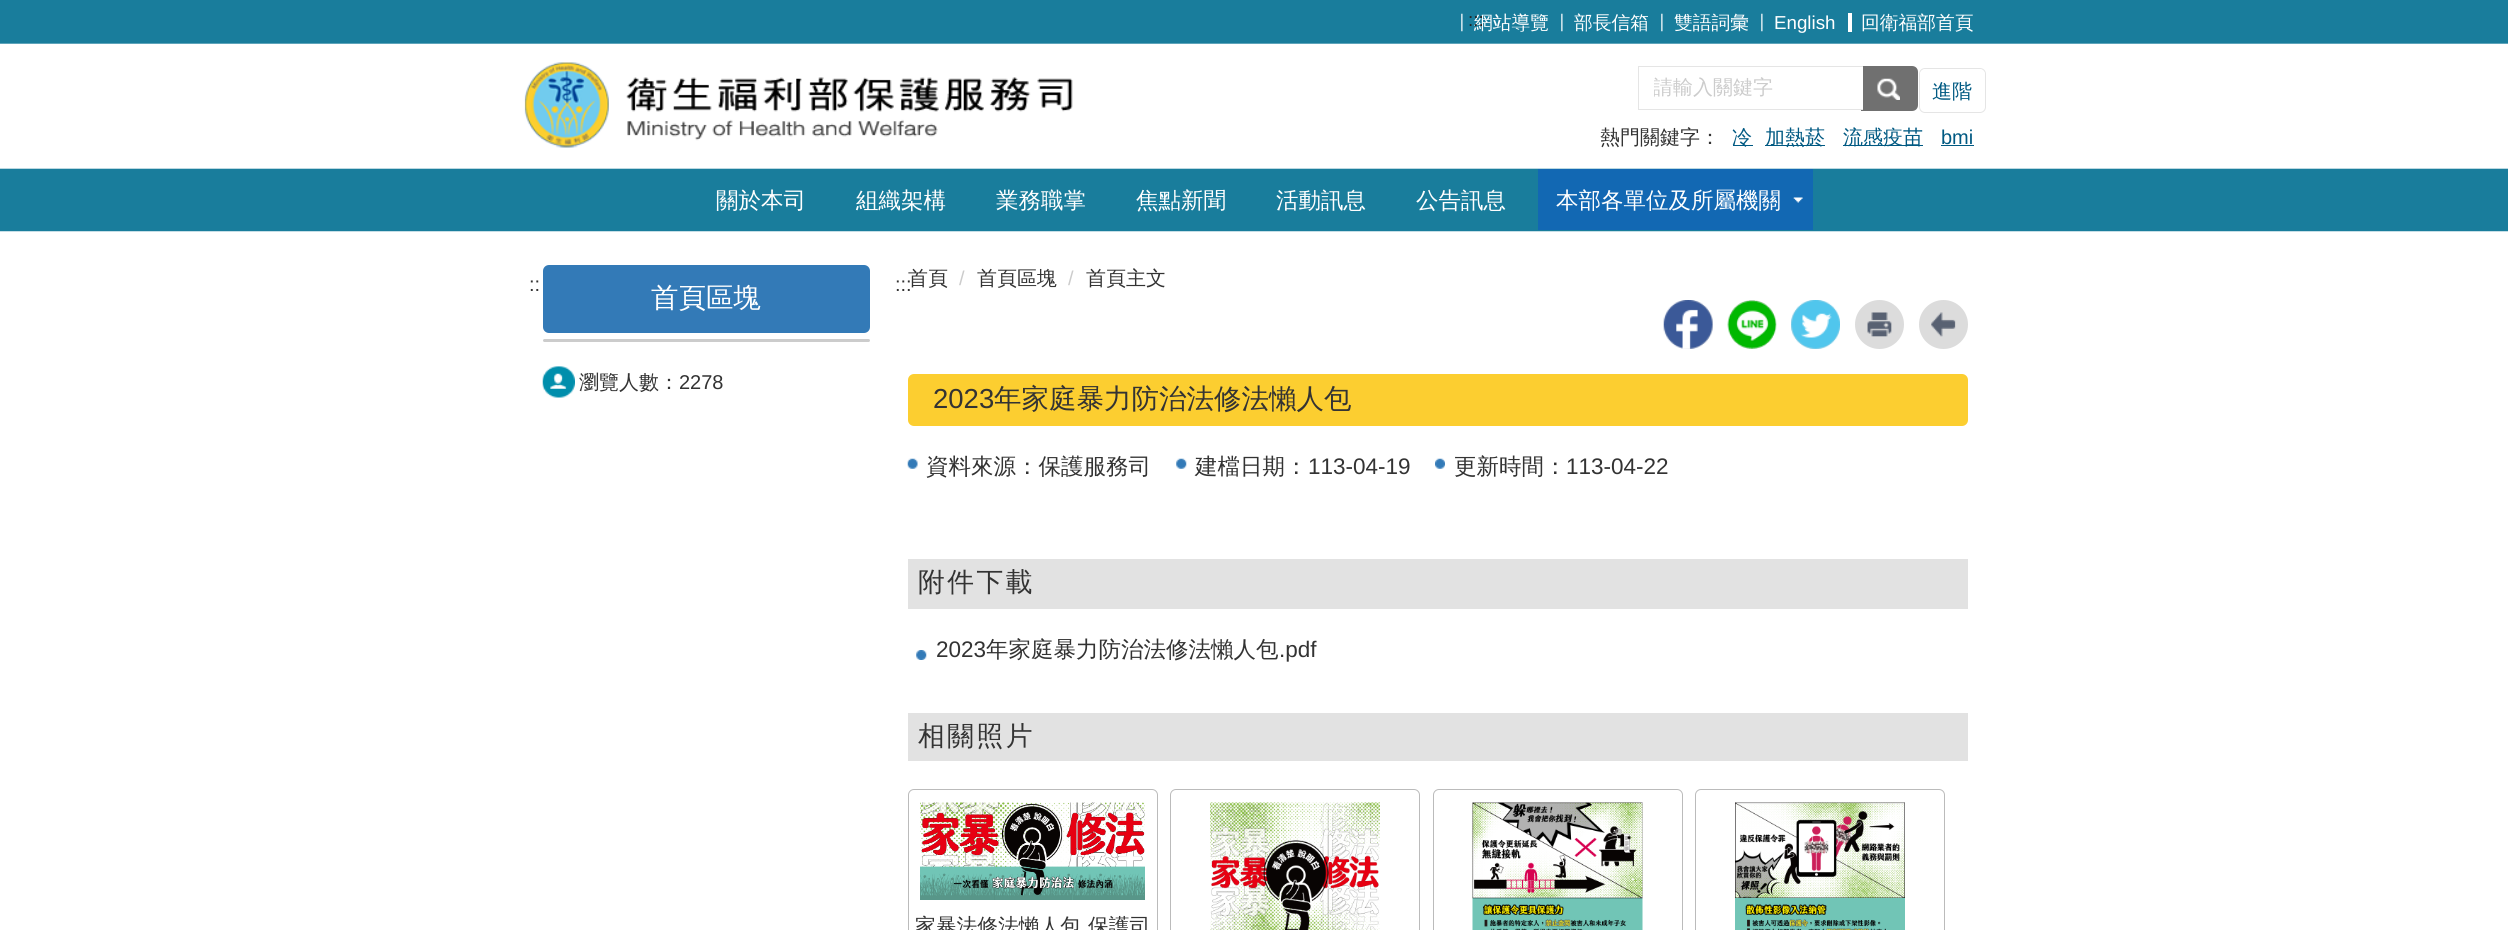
#include <cairo.h>
#include <math.h>
#include <stddef.h>


static void spaced_text(cairo_t *cr, double x, double y, const char *s, double letter, double word) {
    cairo_move_to(cr, x, y);
    while (*s) {
        char ch[5] = {0};
        int n = 0;
        do ch[n++] = *s++; while ((*s & 0xC0) == 0x80);
        cairo_show_text(cr, ch);
        cairo_rel_move_to(cr, letter + word * (*ch == ' '), 0);
    }
}

static void round_rect(cairo_t *cr, double x, double y, double w, double h, double r) {
    cairo_new_sub_path(cr);
    cairo_arc(cr, x + w - r, y + h - r, r, 0, M_PI / 2);
    cairo_arc(cr, x + r, y + h - r, r, M_PI / 2, M_PI);
    cairo_arc(cr, x + r, y + r, r, M_PI, 1.5 * M_PI);
    cairo_arc(cr, x + w - r, y + r, r, 1.5 * M_PI, 2 * M_PI);
    cairo_close_path(cr);
}

static void picture(cairo_t *cr, const char *path, double x, double y, double w, double h) {
    cairo_surface_t *image = cairo_image_surface_create_from_png(path);
    cairo_save(cr);
    cairo_set_source_surface(cr, image, x, y);
    cairo_rectangle(cr, x, y, w, h);
    cairo_fill(cr);
    cairo_restore(cr);
    cairo_surface_destroy(image);
}

int main(void) {
    cairo_surface_t *surface = cairo_image_surface_create(CAIRO_FORMAT_RGB24, 2508, 930);
    cairo_t *cr = cairo_create(surface);
    cairo_font_options_t *options = cairo_font_options_create();
    cairo_font_options_set_hint_metrics(options, CAIRO_HINT_METRICS_OFF);
    cairo_font_options_set_hint_style(options, CAIRO_HINT_STYLE_NONE);
    cairo_set_font_options(cr, options);
    cairo_set_miter_limit(cr, 4);
    cairo_set_source_rgb(cr, 1, 1, 1);
    cairo_paint(cr);
    picture(cr, "img1.png", 0, 0, 2508, 232);
    picture(cr, "img2.png", 524, 62, 549, 86);
    picture(cr, "img3.png", 1461, 13, 2, 19);
    cairo_select_font_face(cr, "WenQuanYi Zen Hei Medium", CAIRO_FONT_SLANT_NORMAL, CAIRO_FONT_WEIGHT_NORMAL);
    cairo_set_font_size(cr, 18.75);
    cairo_set_source_rgb(cr, 1, 1, 1);
    cairo_move_to(cr, 1474, 29);
    cairo_show_text(cr, "網站導覽");
    picture(cr, "img3.png", 1561, 13, 2, 19);
    cairo_move_to(cr, 1574, 29);
    cairo_show_text(cr, "部長信箱");
    picture(cr, "img3.png", 1661, 13, 2, 19);
    cairo_move_to(cr, 1674, 29);
    cairo_show_text(cr, "雙語詞彙");
    picture(cr, "img3.png", 1761, 13, 2, 19);
    cairo_select_font_face(cr, "Liberation Sans", CAIRO_FONT_SLANT_NORMAL, CAIRO_FONT_WEIGHT_NORMAL);
    cairo_move_to(cr, 1774, 29);
    cairo_show_text(cr, "English");
    cairo_rectangle(cr, 1848, 13, 4, 19);
    cairo_fill(cr);
    cairo_select_font_face(cr, "WenQuanYi Zen Hei Medium", CAIRO_FONT_SLANT_NORMAL, CAIRO_FONT_WEIGHT_NORMAL);
    cairo_move_to(cr, 1861, 29);
    cairo_show_text(cr, "回衛福部首頁");
    cairo_select_font_face(cr, "Liberation Sans", CAIRO_FONT_SLANT_NORMAL, CAIRO_FONT_WEIGHT_NORMAL);
    cairo_set_source_rgb(cr, 0.133, 0.133, 0.133);
    cairo_move_to(cr, 1468, 26);
    cairo_show_text(cr, ":::");
    cairo_set_source_rgb(cr, 0.439, 0.439, 0.439);
    cairo_new_path(cr);
    cairo_move_to(cr, 1861, 66);
    cairo_line_to(cr, 1912, 66);
    cairo_curve_to(cr, 1915.5, 66, 1918, 68.5, 1918, 72);
    cairo_line_to(cr, 1918, 105);
    cairo_curve_to(cr, 1918, 108.5, 1915.5, 111, 1912, 111);
    cairo_line_to(cr, 1861, 111);
    cairo_close_path(cr);
    cairo_fill(cr);
    cairo_set_source_rgb(cr, 1, 1, 1);
    cairo_rectangle(cr, 1861, 67, 2, 42);
    cairo_fill(cr);
    cairo_set_source_rgb(cr, 0.898, 0.898, 0.898);
    cairo_rectangle(cr, 1638, 66, 225, 1);
    cairo_fill(cr);
    cairo_rectangle(cr, 1638, 109, 225, 1);
    cairo_fill(cr);
    cairo_rectangle(cr, 1638, 66, 1, 44);
    cairo_fill(cr);
    cairo_save(cr);
    cairo_rectangle(cr, 1654, 76, 194, 27);
    cairo_clip(cr);
    cairo_select_font_face(cr, "WenQuanYi Zen Hei Medium", CAIRO_FONT_SLANT_NORMAL, CAIRO_FONT_WEIGHT_NORMAL);
    cairo_set_font_size(cr, 20);
    cairo_set_source_rgb(cr, 0.8, 0.8, 0.8);
    cairo_move_to(cr, 1653, 94);
    cairo_show_text(cr, "請輸入關鍵字");
    cairo_restore(cr);
    picture(cr, "img4.png", 1877, 78, 23, 22);
    round_rect(cr, 1919.5, 68.5, 66, 44, 5.5);
    cairo_set_line_width(cr, 1);
    cairo_stroke(cr);
    cairo_set_source_rgb(cr, 1, 1, 1);
    round_rect(cr, 1920, 69, 65, 42, 6);
    cairo_fill(cr);
    cairo_select_font_face(cr, "WenQuanYi Zen Hei Medium", CAIRO_FONT_SLANT_NORMAL, CAIRO_FONT_WEIGHT_NORMAL);
    cairo_set_font_size(cr, 20);
    cairo_set_source_rgb(cr, 0, 0.349, 0.51);
    cairo_move_to(cr, 1932, 98);
    cairo_show_text(cr, "進階");
    cairo_set_source_rgb(cr, 0.2, 0.2, 0.2);
    cairo_move_to(cr, 1600, 144);
    cairo_show_text(cr, "熱門關鍵字：");
    cairo_set_source_rgb(cr, 0, 0.349, 0.51);
    cairo_rectangle(cr, 1733, 145, 20, 1);
    cairo_fill(cr);
    cairo_move_to(cr, 1732, 144);
    cairo_show_text(cr, "冷");
    cairo_rectangle(cr, 1765, 145, 60, 1);
    cairo_fill(cr);
    cairo_move_to(cr, 1765, 144);
    cairo_show_text(cr, "加熱菸");
    cairo_rectangle(cr, 1843, 145, 80, 1);
    cairo_fill(cr);
    cairo_move_to(cr, 1843, 144);
    cairo_show_text(cr, "流感疫苗");
    cairo_select_font_face(cr, "Liberation Sans", CAIRO_FONT_SLANT_NORMAL, CAIRO_FONT_WEIGHT_NORMAL);
    cairo_move_to(cr, 1941, 144);
    cairo_show_text(cr, "bmi");
    cairo_rectangle(cr, 1941, 145, 33, 1);
    cairo_fill(cr);
    cairo_select_font_face(cr, "WenQuanYi Zen Hei Medium", CAIRO_FONT_SLANT_NORMAL, CAIRO_FONT_WEIGHT_NORMAL);
    cairo_set_font_size(cr, 22.5);
    cairo_set_source_rgb(cr, 1, 1, 1);
    cairo_move_to(cr, 716, 208);
    cairo_show_text(cr, "關於本司");
    cairo_move_to(cr, 856, 208);
    cairo_show_text(cr, "組織架構");
    cairo_move_to(cr, 996, 208);
    cairo_show_text(cr, "業務職掌");
    cairo_move_to(cr, 1136, 208);
    cairo_show_text(cr, "焦點新聞");
    cairo_move_to(cr, 1276, 208);
    cairo_show_text(cr, "活動訊息");
    cairo_move_to(cr, 1416, 208);
    cairo_show_text(cr, "公告訊息");
    cairo_set_source_rgb(cr, 0.071, 0.408, 0.702);
    cairo_rectangle(cr, 1538, 169, 275, 61);
    cairo_fill(cr);
    picture(cr, "img5.png", 1793, 197, 10, 6);
    cairo_set_source_rgb(cr, 1, 1, 1);
    cairo_move_to(cr, 1556, 208);
    cairo_show_text(cr, "本部各單位及所屬機關");
    cairo_select_font_face(cr, "Liberation Sans", CAIRO_FONT_SLANT_NORMAL, CAIRO_FONT_WEIGHT_NORMAL);
    cairo_set_font_size(cr, 20);
    cairo_set_source_rgb(cr, 0.2, 0.2, 0.2);
    cairo_move_to(cr, 529, 291);
    cairo_show_text(cr, "::");
    cairo_set_source_rgb(cr, 0.2, 0.478, 0.718);
    round_rect(cr, 543, 265, 327, 68, 6);
    cairo_fill(cr);
    cairo_select_font_face(cr, "WenQuanYi Zen Hei Medium", CAIRO_FONT_SLANT_NORMAL, CAIRO_FONT_WEIGHT_NORMAL);
    cairo_set_font_size(cr, 27.5);
    cairo_set_source_rgb(cr, 1, 1, 1);
    cairo_move_to(cr, 651, 307);
    cairo_show_text(cr, "首頁區塊");
    cairo_set_source_rgb(cr, 0.8, 0.8, 0.8);
    round_rect(cr, 543, 339, 327, 3, 1.5);
    cairo_fill(cr);
    picture(cr, "img6.png", 542, 366, 33, 32);
    cairo_set_font_size(cr, 20);
    cairo_set_source_rgb(cr, 0.2, 0.2, 0.2);
    cairo_move_to(cr, 579, 389);
    cairo_show_text(cr, "瀏覽人數：");
    cairo_select_font_face(cr, "Liberation Sans", CAIRO_FONT_SLANT_NORMAL, CAIRO_FONT_WEIGHT_NORMAL);
    cairo_move_to(cr, 679, 389);
    cairo_show_text(cr, "2278");
    cairo_select_font_face(cr, "WenQuanYi Zen Hei Medium", CAIRO_FONT_SLANT_NORMAL, CAIRO_FONT_WEIGHT_NORMAL);
    cairo_move_to(cr, 908, 285);
    cairo_show_text(cr, "首頁");
    cairo_select_font_face(cr, "Liberation Sans", CAIRO_FONT_SLANT_NORMAL, CAIRO_FONT_WEIGHT_NORMAL);
    cairo_move_to(cr, 895, 291);
    cairo_show_text(cr, ":::");
    cairo_set_source_rgb(cr, 0.8, 0.8, 0.8);
    cairo_move_to(cr, 959, 285);
    cairo_show_text(cr, "/");
    cairo_select_font_face(cr, "WenQuanYi Zen Hei Medium", CAIRO_FONT_SLANT_NORMAL, CAIRO_FONT_WEIGHT_NORMAL);
    cairo_set_source_rgb(cr, 0.2, 0.2, 0.2);
    cairo_move_to(cr, 977, 285);
    cairo_show_text(cr, "首頁區塊");
    cairo_select_font_face(cr, "Liberation Sans", CAIRO_FONT_SLANT_NORMAL, CAIRO_FONT_WEIGHT_NORMAL);
    cairo_set_source_rgb(cr, 0.8, 0.8, 0.8);
    cairo_move_to(cr, 1068, 285);
    cairo_show_text(cr, "/");
    cairo_select_font_face(cr, "WenQuanYi Zen Hei Medium", CAIRO_FONT_SLANT_NORMAL, CAIRO_FONT_WEIGHT_NORMAL);
    cairo_set_source_rgb(cr, 0.2, 0.2, 0.2);
    cairo_move_to(cr, 1086, 285);
    cairo_show_text(cr, "首頁主文");
    cairo_set_source_rgb(cr, 0.863, 0.863, 0.863);
    cairo_new_path(cr);
    cairo_arc(cr, 1688.5, 324.5, 24.5, 0, 2 * M_PI);
    cairo_fill(cr);
    picture(cr, "img7.png", 1663, 300, 50, 49);
    round_rect(cr, 1728, 300, 48, 49, 24);
    cairo_fill(cr);
    picture(cr, "img8.png", 1727, 300, 50, 49);
    cairo_arc(cr, 1815.5, 324.5, 24.5, 0, 2 * M_PI);
    cairo_fill(cr);
    picture(cr, "img9.png", 1791, 300, 49, 49);
    cairo_arc(cr, 1879.5, 324.5, 24.5, 0, 2 * M_PI);
    cairo_fill(cr);
    picture(cr, "img10.png", 1867, 312, 25, 25);
    cairo_arc(cr, 1943.5, 324.5, 24.5, 0, 2 * M_PI);
    cairo_fill(cr);
    picture(cr, "img11.png", 1931, 312, 25, 25);
    cairo_set_source_rgb(cr, 0.988, 0.808, 0.188);
    round_rect(cr, 908, 374, 1060, 52, 6);
    cairo_fill(cr);
    cairo_select_font_face(cr, "Liberation Sans", CAIRO_FONT_SLANT_NORMAL, CAIRO_FONT_WEIGHT_NORMAL);
    cairo_set_font_size(cr, 27.5);
    cairo_set_source_rgb(cr, 0.2, 0.2, 0.2);
    cairo_move_to(cr, 933, 408);
    cairo_show_text(cr, "2023");
    cairo_select_font_face(cr, "WenQuanYi Zen Hei Medium", CAIRO_FONT_SLANT_NORMAL, CAIRO_FONT_WEIGHT_NORMAL);
    cairo_move_to(cr, 994, 408);
    cairo_show_text(cr, "年家庭暴力防治法修法懶人包");
    picture(cr, "img12.png", 907, 458, 11, 11);
    cairo_set_font_size(cr, 22.5);
    cairo_move_to(cr, 926, 474);
    cairo_show_text(cr, "資料來源：保護服務司");
    picture(cr, "img13.png", 1176, 458, 11, 11);
    cairo_move_to(cr, 1195, 474);
    cairo_show_text(cr, "建檔日期：");
    cairo_select_font_face(cr, "Liberation Sans", CAIRO_FONT_SLANT_NORMAL, CAIRO_FONT_WEIGHT_NORMAL);
    cairo_move_to(cr, 1308, 474);
    cairo_show_text(cr, "113-04-19");
    picture(cr, "img14.png", 1435, 458, 10, 11);
    cairo_select_font_face(cr, "WenQuanYi Zen Hei Medium", CAIRO_FONT_SLANT_NORMAL, CAIRO_FONT_WEIGHT_NORMAL);
    cairo_move_to(cr, 1454, 474);
    cairo_show_text(cr, "更新時間：");
    cairo_select_font_face(cr, "Liberation Sans", CAIRO_FONT_SLANT_NORMAL, CAIRO_FONT_WEIGHT_NORMAL);
    cairo_move_to(cr, 1566, 474);
    cairo_show_text(cr, "113-04-22");
    cairo_set_source_rgb(cr, 0.886, 0.886, 0.886);
    cairo_rectangle(cr, 908, 559, 1060, 50);
    cairo_fill(cr);
    cairo_select_font_face(cr, "WenQuanYi Zen Hei Medium", CAIRO_FONT_SLANT_NORMAL, CAIRO_FONT_WEIGHT_NORMAL);
    cairo_set_font_size(cr, 26.75);
    cairo_set_source_rgb(cr, 0.2, 0.2, 0.2);
    spaced_text(cr, 918, 591, "附件下載", 2.5, 0);
    picture(cr, "img15.png", 916, 650, 11, 10);
    cairo_select_font_face(cr, "Liberation Sans", CAIRO_FONT_SLANT_NORMAL, CAIRO_FONT_WEIGHT_NORMAL);
    cairo_set_font_size(cr, 22.5);
    cairo_move_to(cr, 936, 657);
    cairo_show_text(cr, "2023");
    cairo_select_font_face(cr, "WenQuanYi Zen Hei Medium", CAIRO_FONT_SLANT_NORMAL, CAIRO_FONT_WEIGHT_NORMAL);
    cairo_move_to(cr, 986, 657);
    cairo_show_text(cr, "年家庭暴力防治法修法懶人包");
    cairo_select_font_face(cr, "Liberation Sans", CAIRO_FONT_SLANT_NORMAL, CAIRO_FONT_WEIGHT_NORMAL);
    cairo_move_to(cr, 1279, 657);
    cairo_show_text(cr, ".pdf");
    cairo_set_source_rgb(cr, 0.886, 0.886, 0.886);
    cairo_rectangle(cr, 908, 713, 1060, 48);
    cairo_fill(cr);
    cairo_select_font_face(cr, "WenQuanYi Zen Hei Medium", CAIRO_FONT_SLANT_NORMAL, CAIRO_FONT_WEIGHT_NORMAL);
    cairo_set_font_size(cr, 26.75);
    cairo_set_source_rgb(cr, 0.2, 0.2, 0.2);
    spaced_text(cr, 918, 745, "相關照片", 2.5, 0);
    round_rect(cr, 908.5, 789.5, 249, 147, 5.5);
    cairo_set_source_rgb(cr, 0.733, 0.733, 0.733);
    cairo_stroke(cr);
    picture(cr, "img16.png", 920, 802, 225, 98);
    cairo_set_font_size(cr, 20.75);
    cairo_set_source_rgb(cr, 0.2, 0.2, 0.2);
    cairo_move_to(cr, 915, 933);
    cairo_show_text(cr, "家暴法修法懶人包");
    cairo_move_to(cr, 1088, 933);
    cairo_show_text(cr, "保護司");
    round_rect(cr, 1170.5, 789.5, 249, 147, 5.5);
    cairo_set_source_rgb(cr, 0.733, 0.733, 0.733);
    cairo_stroke(cr);
    picture(cr, "img17.png", 1210, 802, 170, 128);
    round_rect(cr, 1433.5, 789.5, 249, 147, 5.5);
    cairo_stroke(cr);
    picture(cr, "img18.png", 1472, 802, 171, 128);
    round_rect(cr, 1695.5, 789.5, 249, 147, 5.5);
    cairo_stroke(cr);
    picture(cr, "img19.png", 1735, 802, 170, 128);
    cairo_surface_write_to_png(surface, "page.png");
    cairo_font_options_destroy(options);
    cairo_destroy(cr);
    cairo_surface_destroy(surface);
    return 0;
}
